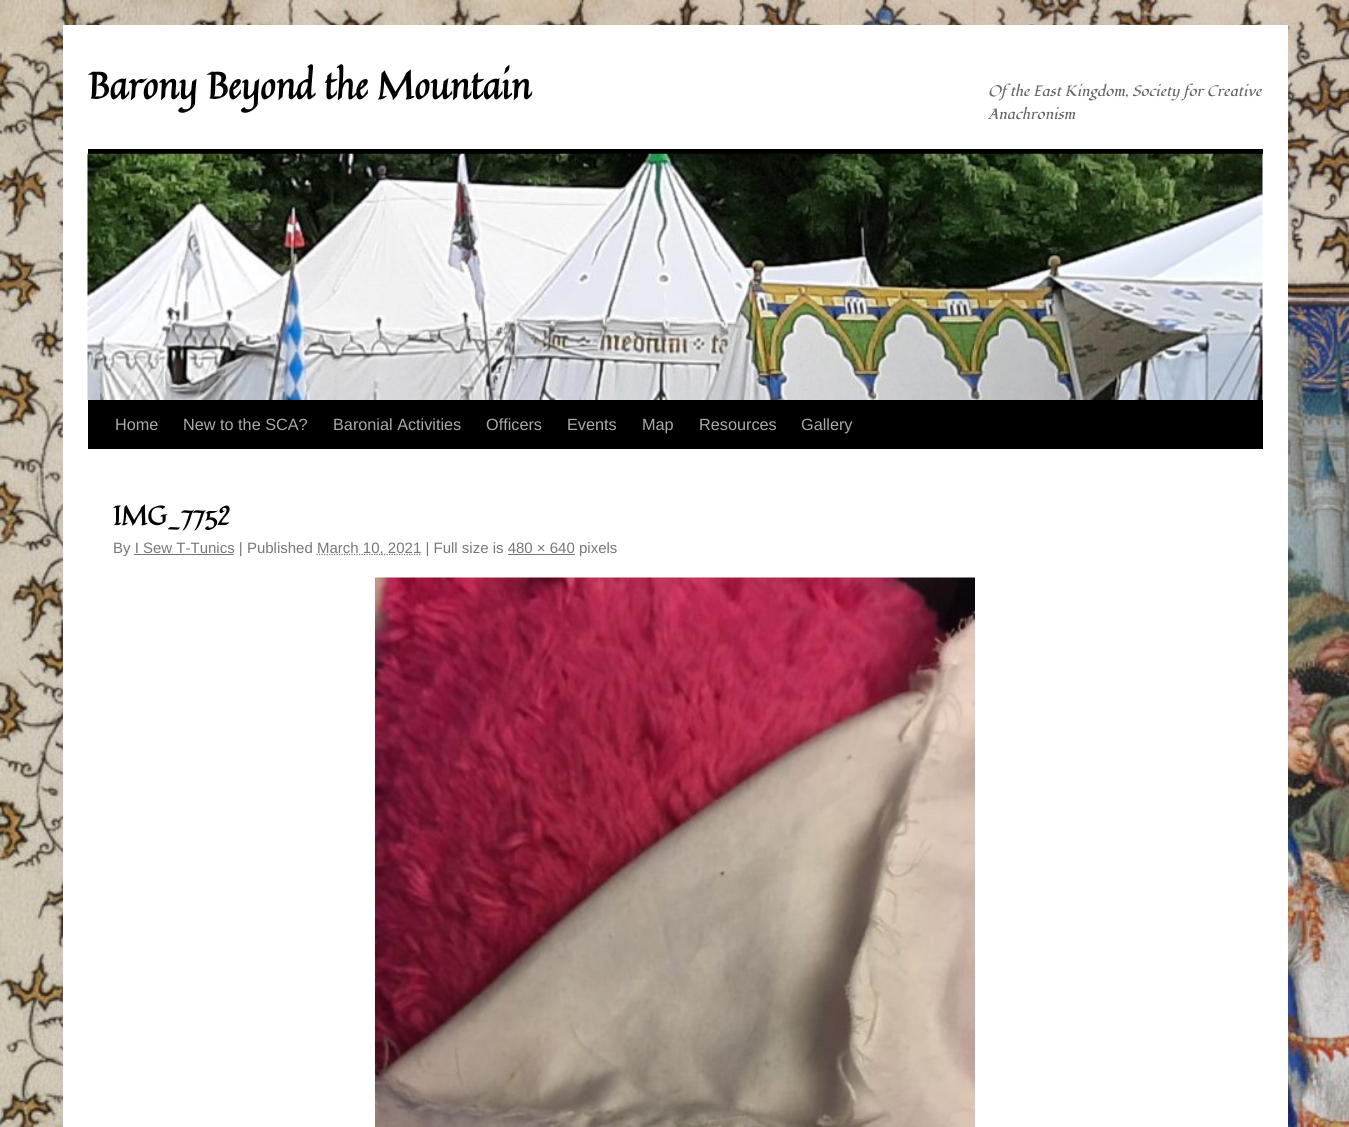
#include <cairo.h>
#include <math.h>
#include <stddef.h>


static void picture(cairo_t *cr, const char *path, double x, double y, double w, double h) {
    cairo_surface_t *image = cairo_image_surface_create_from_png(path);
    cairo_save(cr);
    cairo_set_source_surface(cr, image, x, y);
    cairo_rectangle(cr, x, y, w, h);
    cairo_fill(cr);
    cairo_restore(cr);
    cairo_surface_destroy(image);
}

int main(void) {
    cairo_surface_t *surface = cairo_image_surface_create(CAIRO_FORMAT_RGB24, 1349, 1127);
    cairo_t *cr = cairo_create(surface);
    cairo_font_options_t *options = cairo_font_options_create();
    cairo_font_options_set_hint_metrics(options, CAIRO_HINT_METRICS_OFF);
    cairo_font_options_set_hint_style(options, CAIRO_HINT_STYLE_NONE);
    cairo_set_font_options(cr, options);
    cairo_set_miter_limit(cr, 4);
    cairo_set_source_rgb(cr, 1, 1, 1);
    cairo_paint(cr);
    picture(cr, "img1.png", 0, 0, 1349, 1127);
    cairo_set_source_rgb(cr, 1, 1, 1);
    cairo_rectangle(cr, 63, 25, 1225, 1102);
    cairo_fill(cr);
    cairo_select_font_face(cr, "Quintessential", CAIRO_FONT_SLANT_NORMAL, CAIRO_FONT_WEIGHT_BOLD);
    cairo_set_font_size(cr, 37.5);
    cairo_set_source_rgb(cr, 0, 0, 0);
    cairo_move_to(cr, 88, 99);
    cairo_show_text(cr, "Barony Beyond the Mountain");
    cairo_select_font_face(cr, "Fondamento", CAIRO_FONT_SLANT_ITALIC, CAIRO_FONT_WEIGHT_NORMAL);
    cairo_set_font_size(cr, 15);
    cairo_set_source_rgb(cr, 0.4, 0.4, 0.4);
    cairo_move_to(cr, 988, 96);
    cairo_show_text(cr, "Of the East Kingdom, Society for Creative");
    cairo_move_to(cr, 988, 119);
    cairo_show_text(cr, "Anachronism");
    cairo_set_source_rgb(cr, 0, 0, 0);
    cairo_rectangle(cr, 88, 149, 1175, 5);
    cairo_fill(cr);
    cairo_rectangle(cr, 88, 400, 1175, 49);
    cairo_fill(cr);
    picture(cr, "img2.png", 87, 153, 1176, 247);
    cairo_select_font_face(cr, "Liberation Sans", CAIRO_FONT_SLANT_NORMAL, CAIRO_FONT_WEIGHT_NORMAL);
    cairo_set_font_size(cr, 16.25);
    cairo_set_source_rgb(cr, 0.667, 0.667, 0.667);
    cairo_move_to(cr, 115, 430);
    cairo_show_text(cr, "Home");
    cairo_move_to(cr, 183, 430);
    cairo_show_text(cr, "New to the SCA?");
    cairo_move_to(cr, 333, 430);
    cairo_show_text(cr, "Baronial Activities");
    cairo_move_to(cr, 486, 430);
    cairo_show_text(cr, "Officers");
    cairo_move_to(cr, 567, 430);
    cairo_show_text(cr, "Events");
    cairo_move_to(cr, 642, 430);
    cairo_show_text(cr, "Map");
    cairo_move_to(cr, 699, 430);
    cairo_show_text(cr, "Resources");
    cairo_move_to(cr, 801, 430);
    cairo_show_text(cr, "Gallery");
    cairo_select_font_face(cr, "Quintessential", CAIRO_FONT_SLANT_NORMAL, CAIRO_FONT_WEIGHT_BOLD);
    cairo_set_font_size(cr, 26.25);
    cairo_set_source_rgb(cr, 0, 0, 0);
    cairo_move_to(cr, 113, 525);
    cairo_show_text(cr, "IMG_7752");
    cairo_select_font_face(cr, "Liberation Sans", CAIRO_FONT_SLANT_NORMAL, CAIRO_FONT_WEIGHT_NORMAL);
    cairo_set_font_size(cr, 15);
    cairo_set_source_rgb(cr, 0.467, 0.467, 0.467);
    cairo_move_to(cr, 113, 553);
    cairo_show_text(cr, "By I Sew T-Tunics | Published");
    cairo_new_path(cr);
    cairo_move_to(cr, 316.5, 554.5);
    cairo_line_to(cr, 421, 554.5);
    cairo_set_line_width(cr, 1.2);
    cairo_set_dash(cr, (double[]){1.25, 1.25}, 2, 0);
    cairo_stroke(cr);
    cairo_move_to(cr, 317, 553);
    cairo_show_text(cr, "March 10, 2021 | Full size is 480 × 640 pixels");
    cairo_rectangle(cr, 134, 554, 100, 1);
    cairo_fill(cr);
    cairo_rectangle(cr, 508, 554, 67, 1);
    cairo_fill(cr);
    picture(cr, "img3.png", 375, 577, 600, 550);
    cairo_surface_write_to_png(surface, "page.png");
    cairo_font_options_destroy(options);
    cairo_destroy(cr);
    cairo_surface_destroy(surface);
    return 0;
}
